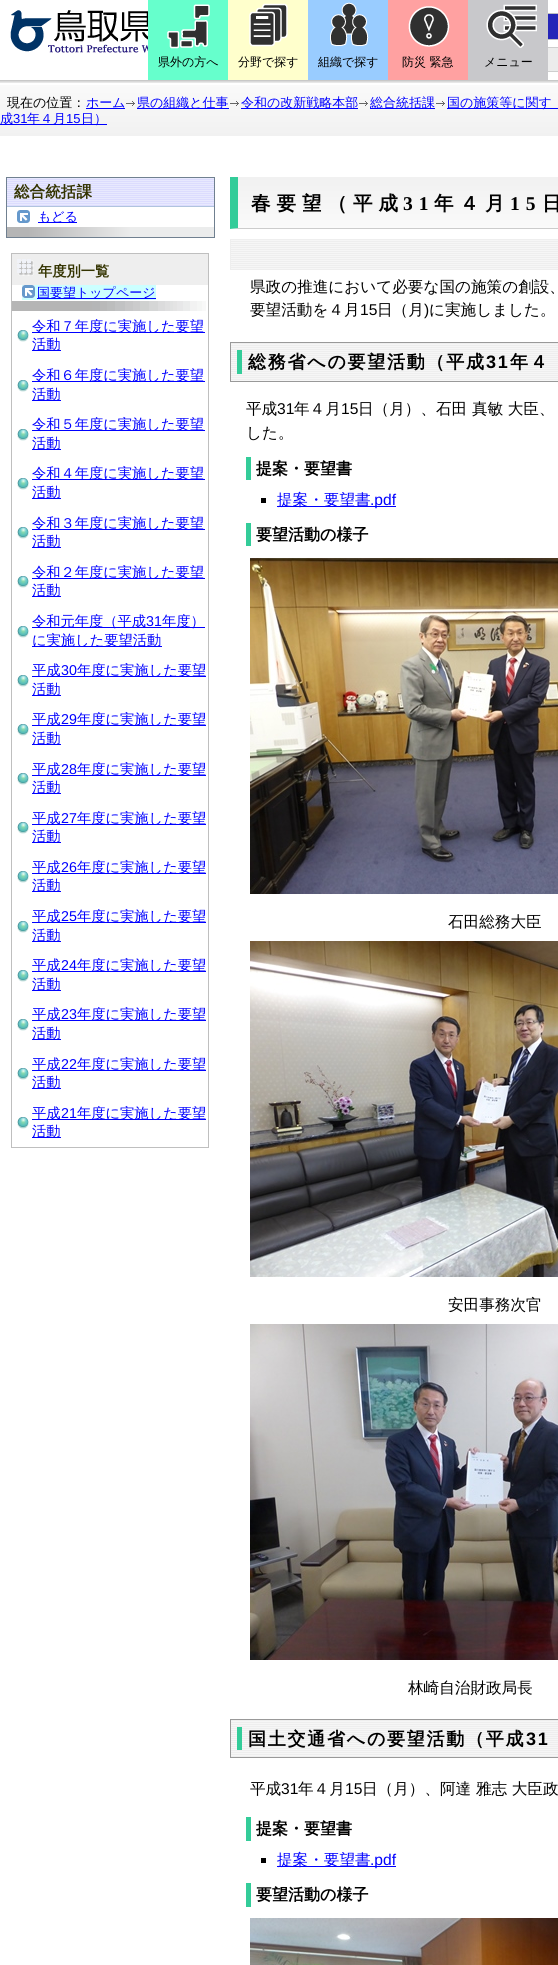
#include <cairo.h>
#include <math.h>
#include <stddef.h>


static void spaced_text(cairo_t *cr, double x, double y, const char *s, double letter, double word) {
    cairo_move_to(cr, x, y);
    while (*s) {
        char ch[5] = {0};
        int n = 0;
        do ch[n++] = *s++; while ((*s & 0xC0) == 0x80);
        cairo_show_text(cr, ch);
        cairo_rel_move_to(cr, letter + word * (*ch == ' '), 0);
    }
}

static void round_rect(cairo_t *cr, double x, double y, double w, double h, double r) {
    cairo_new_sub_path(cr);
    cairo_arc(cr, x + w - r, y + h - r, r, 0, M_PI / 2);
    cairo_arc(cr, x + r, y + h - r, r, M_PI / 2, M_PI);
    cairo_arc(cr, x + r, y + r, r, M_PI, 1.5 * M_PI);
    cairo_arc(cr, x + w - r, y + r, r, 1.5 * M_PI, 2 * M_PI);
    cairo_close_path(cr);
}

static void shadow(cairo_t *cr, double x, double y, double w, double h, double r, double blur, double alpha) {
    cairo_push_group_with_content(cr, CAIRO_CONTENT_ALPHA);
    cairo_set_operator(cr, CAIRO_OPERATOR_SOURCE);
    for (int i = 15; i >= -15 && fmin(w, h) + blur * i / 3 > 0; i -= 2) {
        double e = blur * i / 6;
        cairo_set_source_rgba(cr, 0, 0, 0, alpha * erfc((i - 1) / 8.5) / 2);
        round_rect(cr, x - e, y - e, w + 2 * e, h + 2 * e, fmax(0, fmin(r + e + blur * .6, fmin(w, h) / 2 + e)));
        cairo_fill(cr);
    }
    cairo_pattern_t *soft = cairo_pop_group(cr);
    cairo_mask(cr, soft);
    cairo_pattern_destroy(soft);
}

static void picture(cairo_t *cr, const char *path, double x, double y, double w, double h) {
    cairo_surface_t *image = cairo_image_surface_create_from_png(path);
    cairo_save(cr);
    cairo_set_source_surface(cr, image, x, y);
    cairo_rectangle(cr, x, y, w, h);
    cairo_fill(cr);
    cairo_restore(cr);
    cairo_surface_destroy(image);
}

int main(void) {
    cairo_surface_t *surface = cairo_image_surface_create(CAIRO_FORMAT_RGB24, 558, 1965);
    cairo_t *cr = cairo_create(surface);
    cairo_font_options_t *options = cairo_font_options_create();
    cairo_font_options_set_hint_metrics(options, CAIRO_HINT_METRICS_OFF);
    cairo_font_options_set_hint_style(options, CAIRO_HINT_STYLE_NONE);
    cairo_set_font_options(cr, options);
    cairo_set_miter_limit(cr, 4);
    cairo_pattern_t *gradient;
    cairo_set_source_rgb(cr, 1, 1, 1);
    cairo_paint(cr);
    gradient = cairo_pattern_create_linear(500, 85, 500, 136);
    cairo_pattern_add_color_stop_rgba(gradient, 0, 0.98, 0.98, 0.98, 1);
    cairo_pattern_add_color_stop_rgba(gradient, 1, 0.945, 0.945, 0.945, 1);
    cairo_set_source(cr, gradient);
    cairo_pattern_destroy(gradient);
    cairo_rectangle(cr, 0, 85, 558, 51);
    cairo_fill(cr);
    cairo_save(cr);
    cairo_rectangle(cr, 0, 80, 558, 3);
    cairo_clip(cr);
    cairo_set_source_rgb(cr, 0, 0, 0);
    shadow(cr, -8, 1, 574, 80, 0, 2.5, 0.1);
    shadow(cr, -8, 1, 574, 80, 0, 2.5, 0.1);
    shadow(cr, -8, 1, 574, 80, 0, 2.5, 0.1);
    shadow(cr, -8, 1, 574, 80, 0, 2.5, 0.1);
    cairo_restore(cr);
    picture(cr, "img1.png", 10, 10, 138, 43);
    cairo_set_source_rgb(cr, 0.145, 0.145, 0.722);
    cairo_rectangle(cr, 548, 14, 10, 25);
    cairo_fill(cr);
    cairo_rectangle(cr, 536.5, 13.5, 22, 26);
    cairo_set_source_rgb(cr, 0.749, 0.749, 0.749);
    cairo_set_line_width(cr, 1);
    cairo_stroke(cr);
    cairo_set_source_rgb(cr, 0.808, 0.808, 0.808);
    cairo_rectangle(cr, 548, 47, 10, 1);
    cairo_fill(cr);
    cairo_set_source_rgb(cr, 0.925, 0.925, 0.925);
    cairo_rectangle(cr, 548, 48, 10, 23);
    cairo_fill(cr);
    cairo_set_source_rgb(cr, 0.808, 0.808, 0.808);
    cairo_rectangle(cr, 548, 71, 10, 1);
    cairo_fill(cr);
    cairo_set_source_rgb(cr, 0.4, 1, 0.8);
    cairo_rectangle(cr, 148, 0, 80, 80);
    cairo_fill(cr);
    picture(cr, "img2.png", 167, 4, 43, 45);
    cairo_select_font_face(cr, "WenQuanYi Zen Hei Medium", CAIRO_FONT_SLANT_NORMAL, CAIRO_FONT_WEIGHT_NORMAL);
    cairo_set_font_size(cr, 12);
    cairo_set_source_rgb(cr, 0, 0, 0);
    cairo_move_to(cr, 158, 66);
    cairo_show_text(cr, "県外の方へ");
    cairo_set_source_rgb(cr, 1, 1, 0.8);
    cairo_rectangle(cr, 228, 0, 80, 80);
    cairo_fill(cr);
    picture(cr, "img3.png", 249, 3, 39, 44);
    cairo_set_source_rgb(cr, 0, 0, 0);
    cairo_move_to(cr, 238, 66);
    cairo_show_text(cr, "分野で探す");
    cairo_set_source_rgb(cr, 0.6, 0.8, 1);
    cairo_rectangle(cr, 308, 0, 80, 80);
    cairo_fill(cr);
    picture(cr, "img4.png", 330, 2, 39, 44);
    cairo_set_source_rgb(cr, 0, 0, 0);
    cairo_move_to(cr, 318, 66);
    cairo_show_text(cr, "組織で探す");
    cairo_set_source_rgb(cr, 1, 0.631, 0.631);
    cairo_rectangle(cr, 388, 0, 80, 80);
    cairo_fill(cr);
    picture(cr, "img5.png", 408, 6, 42, 41);
    cairo_set_source_rgb(cr, 0, 0, 0);
    cairo_move_to(cr, 402, 66);
    cairo_show_text(cr, "防災 緊急");
    cairo_set_source_rgb(cr, 0.784, 0.784, 0.796);
    cairo_rectangle(cr, 468, 0, 80, 80);
    cairo_fill(cr);
    picture(cr, "img6.png", 486, 4, 51, 44);
    cairo_set_source_rgb(cr, 0, 0, 0);
    cairo_move_to(cr, 484, 66);
    cairo_show_text(cr, "メニュー");
    cairo_set_font_size(cr, 13);
    cairo_move_to(cr, 7, 107);
    cairo_show_text(cr, "現在の位置：");
    cairo_set_source_rgb(cr, 0, 0, 1);
    cairo_rectangle(cr, 86, 108, 39, 1);
    cairo_fill(cr);
    cairo_move_to(cr, 86, 107);
    cairo_show_text(cr, "ホーム");
    picture(cr, "img7.png", 126, 101, 9, 5);
    cairo_rectangle(cr, 137, 108, 92, 1);
    cairo_fill(cr);
    cairo_move_to(cr, 137, 107);
    cairo_show_text(cr, "県の組織と仕事");
    picture(cr, "img7.png", 230, 101, 9, 5);
    cairo_rectangle(cr, 241, 108, 117, 1);
    cairo_fill(cr);
    cairo_move_to(cr, 241, 107);
    cairo_show_text(cr, "令和の改新戦略本部");
    picture(cr, "img7.png", 359, 101, 9, 5);
    cairo_rectangle(cr, 370, 108, 65, 1);
    cairo_fill(cr);
    cairo_move_to(cr, 370, 107);
    cairo_show_text(cr, "総合統括課");
    picture(cr, "img7.png", 436, 101, 9, 5);
    cairo_rectangle(cr, 447, 108, 111, 1);
    cairo_fill(cr);
    cairo_move_to(cr, 447, 107);
    cairo_show_text(cr, "国の施策等に関す");
    cairo_rectangle(cr, 0, 124, 107, 1);
    cairo_fill(cr);
    cairo_move_to(cr, 0, 123);
    cairo_show_text(cr, "成");
    cairo_select_font_face(cr, "Liberation Sans", CAIRO_FONT_SLANT_NORMAL, CAIRO_FONT_WEIGHT_NORMAL);
    cairo_move_to(cr, 13, 123);
    cairo_show_text(cr, "31");
    cairo_select_font_face(cr, "WenQuanYi Zen Hei Medium", CAIRO_FONT_SLANT_NORMAL, CAIRO_FONT_WEIGHT_NORMAL);
    cairo_move_to(cr, 27, 123);
    cairo_show_text(cr, "年４月");
    cairo_select_font_face(cr, "Liberation Sans", CAIRO_FONT_SLANT_NORMAL, CAIRO_FONT_WEIGHT_NORMAL);
    cairo_move_to(cr, 66, 123);
    cairo_show_text(cr, "15");
    cairo_select_font_face(cr, "WenQuanYi Zen Hei Medium", CAIRO_FONT_SLANT_NORMAL, CAIRO_FONT_WEIGHT_NORMAL);
    cairo_move_to(cr, 81, 123);
    cairo_show_text(cr, "日）");
    cairo_rectangle(cr, 6.5, 177.5, 208, 60);
    cairo_set_source_rgb(cr, 0.439, 0.502, 0.565);
    cairo_stroke(cr);
    picture(cr, "img8.png", 7, 178, 207, 28);
    cairo_set_source_rgb(cr, 0.69, 0.769, 0.871);
    cairo_rectangle(cr, 7, 206, 207, 1);
    cairo_fill(cr);
    cairo_select_font_face(cr, "WenQuanYi Zen Hei", CAIRO_FONT_SLANT_NORMAL, CAIRO_FONT_WEIGHT_BOLD);
    cairo_set_font_size(cr, 15.6);
    cairo_set_source_rgb(cr, 0.2, 0.2, 0);
    cairo_move_to(cr, 14, 197);
    cairo_show_text(cr, "総合統括課");
    picture(cr, "img9.png", 17, 210, 13, 13);
    cairo_set_source_rgb(cr, 0, 0, 1);
    cairo_rectangle(cr, 38, 222, 39, 1);
    cairo_fill(cr);
    cairo_select_font_face(cr, "WenQuanYi Zen Hei Medium", CAIRO_FONT_SLANT_NORMAL, CAIRO_FONT_WEIGHT_NORMAL);
    cairo_set_font_size(cr, 13);
    cairo_move_to(cr, 38, 221);
    cairo_show_text(cr, "もどる");
    gradient = cairo_pattern_create_linear(7, 232, 214, 232);
    cairo_pattern_add_color_stop_rgba(gradient, 0, 0.71, 0.71, 0.71, 1);
    cairo_pattern_add_color_stop_rgba(gradient, 0.1, 0.71, 0.71, 0.71, 1);
    cairo_pattern_add_color_stop_rgba(gradient, 0.6, 0.922, 0.925, 0.925, 1);
    cairo_pattern_add_color_stop_rgba(gradient, 1, 0.922, 0.925, 0.925, 1);
    cairo_set_source(cr, gradient);
    cairo_pattern_destroy(gradient);
    cairo_rectangle(cr, 7, 227, 207, 10);
    cairo_fill(cr);
    cairo_rectangle(cr, 11.5, 253.5, 197, 894);
    cairo_set_source_rgb(cr, 0.749, 0.749, 0.749);
    cairo_stroke(cr);
    cairo_set_source_rgb(cr, 0.933, 0.933, 0.933);
    cairo_rectangle(cr, 12, 254, 196, 31);
    cairo_fill(cr);
    picture(cr, "img10.png", 17, 259, 17, 17);
    cairo_select_font_face(cr, "WenQuanYi Zen Hei", CAIRO_FONT_SLANT_NORMAL, CAIRO_FONT_WEIGHT_BOLD);
    cairo_set_font_size(cr, 14.25);
    cairo_set_source_rgb(cr, 0.2, 0.2, 0);
    cairo_move_to(cr, 38, 276);
    cairo_show_text(cr, "年度別一覧");
    cairo_set_source_rgb(cr, 0.8, 1, 1);
    cairo_rectangle(cr, 22, 285, 134, 15);
    cairo_fill(cr);
    picture(cr, "img11.png", 22, 285, 13, 13);
    cairo_set_source_rgb(cr, 0, 0, 1);
    cairo_rectangle(cr, 37, 298, 119, 1);
    cairo_fill(cr);
    cairo_select_font_face(cr, "WenQuanYi Zen Hei Medium", CAIRO_FONT_SLANT_NORMAL, CAIRO_FONT_WEIGHT_NORMAL);
    cairo_set_font_size(cr, 13);
    cairo_move_to(cr, 37, 297);
    cairo_show_text(cr, "国要望トップページ");
    picture(cr, "img12.png", 12, 301, 194, 10);
    picture(cr, "img13.png", 17, 330, 12, 12);
    cairo_rectangle(cr, 32, 332, 173, 1);
    cairo_fill(cr);
    cairo_set_font_size(cr, 14.25);
    cairo_move_to(cr, 32, 331);
    cairo_show_text(cr, "令和７年度に実施した要望");
    cairo_rectangle(cr, 32, 350, 29, 1);
    cairo_fill(cr);
    cairo_move_to(cr, 32, 349);
    cairo_show_text(cr, "活動");
    picture(cr, "img13.png", 17, 380, 12, 12);
    cairo_rectangle(cr, 32, 381, 173, 1);
    cairo_fill(cr);
    cairo_move_to(cr, 32, 380);
    cairo_show_text(cr, "令和６年度に実施した要望");
    cairo_rectangle(cr, 32, 400, 29, 1);
    cairo_fill(cr);
    cairo_move_to(cr, 32, 399);
    cairo_show_text(cr, "活動");
    picture(cr, "img13.png", 17, 429, 12, 12);
    cairo_rectangle(cr, 32, 430, 173, 1);
    cairo_fill(cr);
    cairo_move_to(cr, 32, 429);
    cairo_show_text(cr, "令和５年度に実施した要望");
    cairo_rectangle(cr, 32, 449, 29, 1);
    cairo_fill(cr);
    cairo_move_to(cr, 32, 448);
    cairo_show_text(cr, "活動");
    picture(cr, "img13.png", 17, 478, 12, 12);
    cairo_rectangle(cr, 32, 479, 173, 1);
    cairo_fill(cr);
    cairo_move_to(cr, 32, 478);
    cairo_show_text(cr, "令和４年度に実施した要望");
    cairo_rectangle(cr, 32, 498, 29, 1);
    cairo_fill(cr);
    cairo_move_to(cr, 32, 497);
    cairo_show_text(cr, "活動");
    picture(cr, "img13.png", 17, 527, 12, 12);
    cairo_rectangle(cr, 32, 529, 173, 1);
    cairo_fill(cr);
    cairo_move_to(cr, 32, 528);
    cairo_show_text(cr, "令和３年度に実施した要望");
    cairo_rectangle(cr, 32, 547, 29, 1);
    cairo_fill(cr);
    cairo_move_to(cr, 32, 546);
    cairo_show_text(cr, "活動");
    picture(cr, "img13.png", 17, 576, 12, 12);
    cairo_rectangle(cr, 32, 578, 173, 1);
    cairo_fill(cr);
    cairo_move_to(cr, 32, 577);
    cairo_show_text(cr, "令和２年度に実施した要望");
    cairo_rectangle(cr, 32, 596, 29, 1);
    cairo_fill(cr);
    cairo_move_to(cr, 32, 595);
    cairo_show_text(cr, "活動");
    picture(cr, "img13.png", 17, 626, 12, 12);
    cairo_rectangle(cr, 32, 627, 173, 1);
    cairo_fill(cr);
    cairo_move_to(cr, 32, 626);
    cairo_show_text(cr, "令和元年度（平成");
    cairo_select_font_face(cr, "Liberation Sans", CAIRO_FONT_SLANT_NORMAL, CAIRO_FONT_WEIGHT_NORMAL);
    cairo_move_to(cr, 146, 626);
    cairo_show_text(cr, "31");
    cairo_select_font_face(cr, "WenQuanYi Zen Hei Medium", CAIRO_FONT_SLANT_NORMAL, CAIRO_FONT_WEIGHT_NORMAL);
    cairo_move_to(cr, 162, 626);
    cairo_show_text(cr, "年度）");
    cairo_rectangle(cr, 32, 646, 130, 1);
    cairo_fill(cr);
    cairo_move_to(cr, 32, 645);
    cairo_show_text(cr, "に実施した要望活動");
    picture(cr, "img13.png", 17, 675, 12, 12);
    cairo_rectangle(cr, 32, 676, 174, 1);
    cairo_fill(cr);
    cairo_move_to(cr, 32, 675);
    cairo_show_text(cr, "平成");
    cairo_select_font_face(cr, "Liberation Sans", CAIRO_FONT_SLANT_NORMAL, CAIRO_FONT_WEIGHT_NORMAL);
    cairo_move_to(cr, 61, 675);
    cairo_show_text(cr, "30");
    cairo_select_font_face(cr, "WenQuanYi Zen Hei Medium", CAIRO_FONT_SLANT_NORMAL, CAIRO_FONT_WEIGHT_NORMAL);
    cairo_move_to(cr, 77, 675);
    cairo_show_text(cr, "年度に実施した要望");
    cairo_rectangle(cr, 32, 695, 29, 1);
    cairo_fill(cr);
    cairo_move_to(cr, 32, 694);
    cairo_show_text(cr, "活動");
    picture(cr, "img13.png", 17, 724, 12, 12);
    cairo_rectangle(cr, 32, 725, 174, 1);
    cairo_fill(cr);
    cairo_move_to(cr, 32, 724);
    cairo_show_text(cr, "平成");
    cairo_select_font_face(cr, "Liberation Sans", CAIRO_FONT_SLANT_NORMAL, CAIRO_FONT_WEIGHT_NORMAL);
    cairo_move_to(cr, 61, 724);
    cairo_show_text(cr, "29");
    cairo_select_font_face(cr, "WenQuanYi Zen Hei Medium", CAIRO_FONT_SLANT_NORMAL, CAIRO_FONT_WEIGHT_NORMAL);
    cairo_move_to(cr, 77, 724);
    cairo_show_text(cr, "年度に実施した要望");
    cairo_rectangle(cr, 32, 744, 29, 1);
    cairo_fill(cr);
    cairo_move_to(cr, 32, 743);
    cairo_show_text(cr, "活動");
    picture(cr, "img13.png", 17, 773, 12, 12);
    cairo_rectangle(cr, 32, 775, 174, 1);
    cairo_fill(cr);
    cairo_move_to(cr, 32, 774);
    cairo_show_text(cr, "平成");
    cairo_select_font_face(cr, "Liberation Sans", CAIRO_FONT_SLANT_NORMAL, CAIRO_FONT_WEIGHT_NORMAL);
    cairo_move_to(cr, 61, 774);
    cairo_show_text(cr, "28");
    cairo_select_font_face(cr, "WenQuanYi Zen Hei Medium", CAIRO_FONT_SLANT_NORMAL, CAIRO_FONT_WEIGHT_NORMAL);
    cairo_move_to(cr, 77, 774);
    cairo_show_text(cr, "年度に実施した要望");
    cairo_rectangle(cr, 32, 793, 29, 1);
    cairo_fill(cr);
    cairo_move_to(cr, 32, 792);
    cairo_show_text(cr, "活動");
    picture(cr, "img13.png", 17, 822, 12, 12);
    cairo_rectangle(cr, 32, 824, 174, 1);
    cairo_fill(cr);
    cairo_move_to(cr, 32, 823);
    cairo_show_text(cr, "平成");
    cairo_select_font_face(cr, "Liberation Sans", CAIRO_FONT_SLANT_NORMAL, CAIRO_FONT_WEIGHT_NORMAL);
    cairo_move_to(cr, 61, 823);
    cairo_show_text(cr, "27");
    cairo_select_font_face(cr, "WenQuanYi Zen Hei Medium", CAIRO_FONT_SLANT_NORMAL, CAIRO_FONT_WEIGHT_NORMAL);
    cairo_move_to(cr, 77, 823);
    cairo_show_text(cr, "年度に実施した要望");
    cairo_rectangle(cr, 32, 842, 29, 1);
    cairo_fill(cr);
    cairo_move_to(cr, 32, 841);
    cairo_show_text(cr, "活動");
    picture(cr, "img13.png", 17, 871, 12, 12);
    cairo_rectangle(cr, 32, 873, 174, 1);
    cairo_fill(cr);
    cairo_move_to(cr, 32, 872);
    cairo_show_text(cr, "平成");
    cairo_select_font_face(cr, "Liberation Sans", CAIRO_FONT_SLANT_NORMAL, CAIRO_FONT_WEIGHT_NORMAL);
    cairo_move_to(cr, 61, 872);
    cairo_show_text(cr, "26");
    cairo_select_font_face(cr, "WenQuanYi Zen Hei Medium", CAIRO_FONT_SLANT_NORMAL, CAIRO_FONT_WEIGHT_NORMAL);
    cairo_move_to(cr, 77, 872);
    cairo_show_text(cr, "年度に実施した要望");
    cairo_rectangle(cr, 32, 891, 29, 1);
    cairo_fill(cr);
    cairo_move_to(cr, 32, 890);
    cairo_show_text(cr, "活動");
    picture(cr, "img13.png", 17, 921, 12, 12);
    cairo_rectangle(cr, 32, 922, 174, 1);
    cairo_fill(cr);
    cairo_move_to(cr, 32, 921);
    cairo_show_text(cr, "平成");
    cairo_select_font_face(cr, "Liberation Sans", CAIRO_FONT_SLANT_NORMAL, CAIRO_FONT_WEIGHT_NORMAL);
    cairo_move_to(cr, 61, 921);
    cairo_show_text(cr, "25");
    cairo_select_font_face(cr, "WenQuanYi Zen Hei Medium", CAIRO_FONT_SLANT_NORMAL, CAIRO_FONT_WEIGHT_NORMAL);
    cairo_move_to(cr, 77, 921);
    cairo_show_text(cr, "年度に実施した要望");
    cairo_rectangle(cr, 32, 941, 29, 1);
    cairo_fill(cr);
    cairo_move_to(cr, 32, 940);
    cairo_show_text(cr, "活動");
    picture(cr, "img13.png", 17, 970, 12, 12);
    cairo_rectangle(cr, 32, 971, 174, 1);
    cairo_fill(cr);
    cairo_move_to(cr, 32, 970);
    cairo_show_text(cr, "平成");
    cairo_select_font_face(cr, "Liberation Sans", CAIRO_FONT_SLANT_NORMAL, CAIRO_FONT_WEIGHT_NORMAL);
    cairo_move_to(cr, 61, 970);
    cairo_show_text(cr, "24");
    cairo_select_font_face(cr, "WenQuanYi Zen Hei Medium", CAIRO_FONT_SLANT_NORMAL, CAIRO_FONT_WEIGHT_NORMAL);
    cairo_move_to(cr, 77, 970);
    cairo_show_text(cr, "年度に実施した要望");
    cairo_rectangle(cr, 32, 990, 29, 1);
    cairo_fill(cr);
    cairo_move_to(cr, 32, 989);
    cairo_show_text(cr, "活動");
    picture(cr, "img13.png", 17, 1019, 12, 12);
    cairo_rectangle(cr, 32, 1020, 174, 1);
    cairo_fill(cr);
    cairo_move_to(cr, 32, 1019);
    cairo_show_text(cr, "平成");
    cairo_select_font_face(cr, "Liberation Sans", CAIRO_FONT_SLANT_NORMAL, CAIRO_FONT_WEIGHT_NORMAL);
    cairo_move_to(cr, 61, 1019);
    cairo_show_text(cr, "23");
    cairo_select_font_face(cr, "WenQuanYi Zen Hei Medium", CAIRO_FONT_SLANT_NORMAL, CAIRO_FONT_WEIGHT_NORMAL);
    cairo_move_to(cr, 77, 1019);
    cairo_show_text(cr, "年度に実施した要望");
    cairo_rectangle(cr, 32, 1039, 29, 1);
    cairo_fill(cr);
    cairo_move_to(cr, 32, 1038);
    cairo_show_text(cr, "活動");
    picture(cr, "img13.png", 17, 1068, 12, 12);
    cairo_rectangle(cr, 32, 1070, 174, 1);
    cairo_fill(cr);
    cairo_move_to(cr, 32, 1069);
    cairo_show_text(cr, "平成");
    cairo_select_font_face(cr, "Liberation Sans", CAIRO_FONT_SLANT_NORMAL, CAIRO_FONT_WEIGHT_NORMAL);
    cairo_move_to(cr, 61, 1069);
    cairo_show_text(cr, "22");
    cairo_select_font_face(cr, "WenQuanYi Zen Hei Medium", CAIRO_FONT_SLANT_NORMAL, CAIRO_FONT_WEIGHT_NORMAL);
    cairo_move_to(cr, 77, 1069);
    cairo_show_text(cr, "年度に実施した要望");
    cairo_rectangle(cr, 32, 1088, 29, 1);
    cairo_fill(cr);
    cairo_move_to(cr, 32, 1087);
    cairo_show_text(cr, "活動");
    picture(cr, "img13.png", 17, 1117, 12, 12);
    cairo_rectangle(cr, 32, 1119, 174, 1);
    cairo_fill(cr);
    cairo_move_to(cr, 32, 1118);
    cairo_show_text(cr, "平成");
    cairo_select_font_face(cr, "Liberation Sans", CAIRO_FONT_SLANT_NORMAL, CAIRO_FONT_WEIGHT_NORMAL);
    cairo_move_to(cr, 61, 1118);
    cairo_show_text(cr, "21");
    cairo_select_font_face(cr, "WenQuanYi Zen Hei Medium", CAIRO_FONT_SLANT_NORMAL, CAIRO_FONT_WEIGHT_NORMAL);
    cairo_move_to(cr, 77, 1118);
    cairo_show_text(cr, "年度に実施した要望");
    cairo_rectangle(cr, 32, 1137, 29, 1);
    cairo_fill(cr);
    cairo_move_to(cr, 32, 1136);
    cairo_show_text(cr, "活動");
    gradient = cairo_pattern_create_linear(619, 177, 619, 228);
    cairo_pattern_add_color_stop_rgba(gradient, 0, 0.945, 0.945, 0.945, 1);
    cairo_pattern_add_color_stop_rgba(gradient, 1, 0.98, 0.98, 0.98, 1);
    cairo_set_source(cr, gradient);
    cairo_pattern_destroy(gradient);
    cairo_rectangle(cr, 238, 177, 320, 51);
    cairo_fill(cr);
    cairo_set_source_rgb(cr, 0.8, 0.8, 0.8);
    cairo_new_path(cr);
    cairo_move_to(cr, 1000, 229);
    cairo_line_to(cr, 230, 229);
    cairo_line_to(cr, 238, 228);
    cairo_line_to(cr, 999, 228);
    cairo_close_path(cr);
    cairo_fill(cr);
    cairo_set_source_rgb(cr, 0.2, 0.8, 0.6);
    cairo_new_path(cr);
    cairo_move_to(cr, 230, 229);
    cairo_line_to(cr, 230, 177);
    cairo_line_to(cr, 238, 177);
    cairo_line_to(cr, 238, 228);
    cairo_close_path(cr);
    cairo_fill(cr);
    cairo_select_font_face(cr, "WenQuanYi Zen Hei", CAIRO_FONT_SLANT_NORMAL, CAIRO_FONT_WEIGHT_BOLD);
    cairo_set_font_size(cr, 19.5);
    cairo_set_source_rgb(cr, 0, 0, 0);
    spaced_text(cr, 251, 210, "春要望（平成", 6, 0);
    cairo_select_font_face(cr, "Liberation Serif", CAIRO_FONT_SLANT_NORMAL, CAIRO_FONT_WEIGHT_BOLD);
    spaced_text(cr, 403, 210, "31", 6, 0);
    cairo_select_font_face(cr, "WenQuanYi Zen Hei", CAIRO_FONT_SLANT_NORMAL, CAIRO_FONT_WEIGHT_BOLD);
    spaced_text(cr, 434, 210, "年４月", 6, 0);
    cairo_select_font_face(cr, "Liberation Serif", CAIRO_FONT_SLANT_NORMAL, CAIRO_FONT_WEIGHT_BOLD);
    spaced_text(cr, 510, 210, "15", 6, 0);
    cairo_select_font_face(cr, "WenQuanYi Zen Hei", CAIRO_FONT_SLANT_NORMAL, CAIRO_FONT_WEIGHT_BOLD);
    spaced_text(cr, 542, 210, "日", 6, 0);
    picture(cr, "img14.png", 231, 240, 327, 29);
    cairo_rectangle(cr, 230.5, 239.5, 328, 30);
    cairo_set_source_rgb(cr, 0.933, 0.933, 0.933);
    cairo_stroke(cr);
    cairo_select_font_face(cr, "WenQuanYi Zen Hei Medium", CAIRO_FONT_SLANT_NORMAL, CAIRO_FONT_WEIGHT_NORMAL);
    cairo_set_font_size(cr, 15.6);
    cairo_set_source_rgb(cr, 0, 0, 0);
    cairo_move_to(cr, 250, 292);
    cairo_show_text(cr, "県政の推進において必要な国の施策の創設、");
    cairo_move_to(cr, 250, 315);
    cairo_show_text(cr, "要望活動を４月");
    cairo_select_font_face(cr, "Liberation Sans", CAIRO_FONT_SLANT_NORMAL, CAIRO_FONT_WEIGHT_NORMAL);
    cairo_move_to(cr, 360, 315);
    cairo_show_text(cr, "15");
    cairo_select_font_face(cr, "WenQuanYi Zen Hei Medium", CAIRO_FONT_SLANT_NORMAL, CAIRO_FONT_WEIGHT_NORMAL);
    cairo_move_to(cr, 377, 315);
    cairo_show_text(cr, "日（月");
    cairo_select_font_face(cr, "Liberation Sans", CAIRO_FONT_SLANT_NORMAL, CAIRO_FONT_WEIGHT_NORMAL);
    cairo_move_to(cr, 424, 315);
    cairo_show_text(cr, ")");
    cairo_select_font_face(cr, "WenQuanYi Zen Hei Medium", CAIRO_FONT_SLANT_NORMAL, CAIRO_FONT_WEIGHT_NORMAL);
    cairo_move_to(cr, 429, 315);
    cairo_show_text(cr, "に実施しました。");
    picture(cr, "img15.png", 231, 343, 327, 38);
    cairo_rectangle(cr, 230.5, 342.5, 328, 39);
    cairo_set_source_rgb(cr, 0.6, 0.6, 0.6);
    cairo_stroke(cr);
    cairo_set_source_rgb(cr, 0.2, 0.8, 0.6);
    cairo_rectangle(cr, 237, 350, 5, 24);
    cairo_fill(cr);
    cairo_select_font_face(cr, "WenQuanYi Zen Hei", CAIRO_FONT_SLANT_NORMAL, CAIRO_FONT_WEIGHT_BOLD);
    cairo_set_font_size(cr, 18);
    cairo_set_source_rgb(cr, 0, 0, 0);
    spaced_text(cr, 248, 368, "総務省への要望活動（平成", 1.75, 0);
    cairo_select_font_face(cr, "Liberation Sans", CAIRO_FONT_SLANT_NORMAL, CAIRO_FONT_WEIGHT_BOLD);
    spaced_text(cr, 486, 368, "31", 1.75, 0);
    cairo_select_font_face(cr, "WenQuanYi Zen Hei", CAIRO_FONT_SLANT_NORMAL, CAIRO_FONT_WEIGHT_BOLD);
    spaced_text(cr, 510, 368, "年４", 1.75, 0);
    cairo_select_font_face(cr, "WenQuanYi Zen Hei Medium", CAIRO_FONT_SLANT_NORMAL, CAIRO_FONT_WEIGHT_NORMAL);
    cairo_set_font_size(cr, 15.6);
    cairo_move_to(cr, 246, 414);
    cairo_show_text(cr, "平成");
    cairo_select_font_face(cr, "Liberation Sans", CAIRO_FONT_SLANT_NORMAL, CAIRO_FONT_WEIGHT_NORMAL);
    cairo_move_to(cr, 277, 414);
    cairo_show_text(cr, "31");
    cairo_select_font_face(cr, "WenQuanYi Zen Hei Medium", CAIRO_FONT_SLANT_NORMAL, CAIRO_FONT_WEIGHT_NORMAL);
    cairo_move_to(cr, 294, 414);
    cairo_show_text(cr, "年４月");
    cairo_select_font_face(cr, "Liberation Sans", CAIRO_FONT_SLANT_NORMAL, CAIRO_FONT_WEIGHT_NORMAL);
    cairo_move_to(cr, 341, 414);
    cairo_show_text(cr, "15");
    cairo_select_font_face(cr, "WenQuanYi Zen Hei Medium", CAIRO_FONT_SLANT_NORMAL, CAIRO_FONT_WEIGHT_NORMAL);
    cairo_move_to(cr, 358, 414);
    cairo_show_text(cr, "日（月）、石田 真敏 大臣、");
    cairo_move_to(cr, 246, 438);
    cairo_show_text(cr, "した。");
    cairo_set_source_rgb(cr, 0.2, 0.8, 0.6);
    cairo_rectangle(cr, 246, 457, 5, 23);
    cairo_fill(cr);
    cairo_select_font_face(cr, "WenQuanYi Zen Hei", CAIRO_FONT_SLANT_NORMAL, CAIRO_FONT_WEIGHT_BOLD);
    cairo_set_font_size(cr, 16);
    cairo_set_source_rgb(cr, 0, 0, 0);
    cairo_move_to(cr, 256, 474);
    cairo_show_text(cr, "提案・要望書");
    cairo_rectangle(cr, 261, 498, 5, 5);
    cairo_fill(cr);
    cairo_set_source_rgb(cr, 0, 0, 1);
    cairo_rectangle(cr, 277, 506, 119, 1);
    cairo_fill(cr);
    cairo_select_font_face(cr, "WenQuanYi Zen Hei Medium", CAIRO_FONT_SLANT_NORMAL, CAIRO_FONT_WEIGHT_NORMAL);
    cairo_set_font_size(cr, 15.6);
    cairo_move_to(cr, 277, 505);
    cairo_show_text(cr, "提案・要望書");
    cairo_select_font_face(cr, "Liberation Sans", CAIRO_FONT_SLANT_NORMAL, CAIRO_FONT_WEIGHT_NORMAL);
    cairo_move_to(cr, 370, 505);
    cairo_show_text(cr, ".pdf");
    cairo_set_source_rgb(cr, 0.2, 0.8, 0.6);
    cairo_rectangle(cr, 246, 523, 5, 23);
    cairo_fill(cr);
    cairo_select_font_face(cr, "WenQuanYi Zen Hei", CAIRO_FONT_SLANT_NORMAL, CAIRO_FONT_WEIGHT_BOLD);
    cairo_set_font_size(cr, 16);
    cairo_set_source_rgb(cr, 0, 0, 0);
    cairo_move_to(cr, 256, 540);
    cairo_show_text(cr, "要望活動の様子");
    picture(cr, "img16.png", 250, 558, 308, 336);
    cairo_select_font_face(cr, "WenQuanYi Zen Hei Medium", CAIRO_FONT_SLANT_NORMAL, CAIRO_FONT_WEIGHT_NORMAL);
    cairo_set_font_size(cr, 15.6);
    cairo_move_to(cr, 448, 927);
    cairo_show_text(cr, "石田総務大臣");
    picture(cr, "img17.png", 250, 941, 308, 336);
    cairo_move_to(cr, 448, 1310);
    cairo_show_text(cr, "安田事務次官");
    picture(cr, "img18.png", 250, 1324, 308, 336);
    cairo_move_to(cr, 408, 1693);
    cairo_show_text(cr, "林崎自治財政局長");
    picture(cr, "img19.png", 231, 1720, 327, 37);
    cairo_rectangle(cr, 230.5, 1719.5, 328, 38);
    cairo_set_source_rgb(cr, 0.6, 0.6, 0.6);
    cairo_stroke(cr);
    cairo_set_source_rgb(cr, 0.2, 0.8, 0.6);
    cairo_rectangle(cr, 237, 1727, 5, 23);
    cairo_fill(cr);
    cairo_select_font_face(cr, "WenQuanYi Zen Hei", CAIRO_FONT_SLANT_NORMAL, CAIRO_FONT_WEIGHT_BOLD);
    cairo_set_font_size(cr, 18);
    cairo_set_source_rgb(cr, 0, 0, 0);
    spaced_text(cr, 248, 1745, "国土交通省への要望活動（平成", 1.75, 0);
    cairo_select_font_face(cr, "Liberation Sans", CAIRO_FONT_SLANT_NORMAL, CAIRO_FONT_WEIGHT_BOLD);
    spaced_text(cr, 526, 1745, "31", 1.75, 0);
    cairo_select_font_face(cr, "WenQuanYi Zen Hei Medium", CAIRO_FONT_SLANT_NORMAL, CAIRO_FONT_WEIGHT_NORMAL);
    cairo_set_font_size(cr, 15.6);
    cairo_move_to(cr, 250, 1794);
    cairo_show_text(cr, "平成");
    cairo_select_font_face(cr, "Liberation Sans", CAIRO_FONT_SLANT_NORMAL, CAIRO_FONT_WEIGHT_NORMAL);
    cairo_move_to(cr, 281, 1794);
    cairo_show_text(cr, "31");
    cairo_select_font_face(cr, "WenQuanYi Zen Hei Medium", CAIRO_FONT_SLANT_NORMAL, CAIRO_FONT_WEIGHT_NORMAL);
    cairo_move_to(cr, 298, 1794);
    cairo_show_text(cr, "年４月");
    cairo_select_font_face(cr, "Liberation Sans", CAIRO_FONT_SLANT_NORMAL, CAIRO_FONT_WEIGHT_NORMAL);
    cairo_move_to(cr, 345, 1794);
    cairo_show_text(cr, "15");
    cairo_select_font_face(cr, "WenQuanYi Zen Hei Medium", CAIRO_FONT_SLANT_NORMAL, CAIRO_FONT_WEIGHT_NORMAL);
    cairo_move_to(cr, 362, 1794);
    cairo_show_text(cr, "日（月）、阿達 雅志 大臣政");
    cairo_set_source_rgb(cr, 0.2, 0.8, 0.6);
    cairo_rectangle(cr, 246, 1817, 5, 24);
    cairo_fill(cr);
    cairo_select_font_face(cr, "WenQuanYi Zen Hei", CAIRO_FONT_SLANT_NORMAL, CAIRO_FONT_WEIGHT_BOLD);
    cairo_set_font_size(cr, 16);
    cairo_set_source_rgb(cr, 0, 0, 0);
    cairo_move_to(cr, 256, 1834);
    cairo_show_text(cr, "提案・要望書");
    cairo_rectangle(cr, 261, 1858, 5, 5);
    cairo_fill(cr);
    cairo_set_source_rgb(cr, 0, 0, 1);
    cairo_rectangle(cr, 277, 1866, 119, 1);
    cairo_fill(cr);
    cairo_select_font_face(cr, "WenQuanYi Zen Hei Medium", CAIRO_FONT_SLANT_NORMAL, CAIRO_FONT_WEIGHT_NORMAL);
    cairo_set_font_size(cr, 15.6);
    cairo_move_to(cr, 277, 1865);
    cairo_show_text(cr, "提案・要望書");
    cairo_select_font_face(cr, "Liberation Sans", CAIRO_FONT_SLANT_NORMAL, CAIRO_FONT_WEIGHT_NORMAL);
    cairo_move_to(cr, 370, 1865);
    cairo_show_text(cr, ".pdf");
    cairo_set_source_rgb(cr, 0.2, 0.8, 0.6);
    cairo_rectangle(cr, 246, 1883, 5, 24);
    cairo_fill(cr);
    cairo_select_font_face(cr, "WenQuanYi Zen Hei", CAIRO_FONT_SLANT_NORMAL, CAIRO_FONT_WEIGHT_BOLD);
    cairo_set_font_size(cr, 16);
    cairo_set_source_rgb(cr, 0, 0, 0);
    cairo_move_to(cr, 256, 1900);
    cairo_show_text(cr, "要望活動の様子");
    picture(cr, "img20.png", 250, 1918, 308, 47);
    cairo_surface_write_to_png(surface, "page.png");
    cairo_font_options_destroy(options);
    cairo_destroy(cr);
    cairo_surface_destroy(surface);
    return 0;
}
